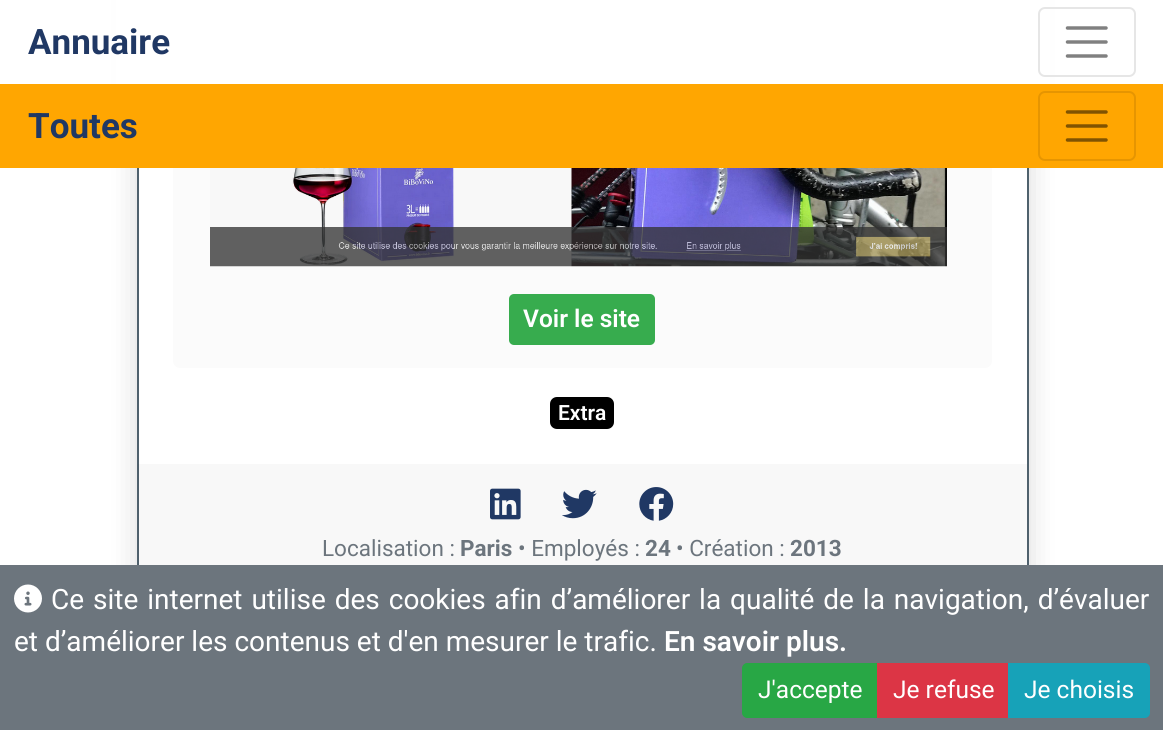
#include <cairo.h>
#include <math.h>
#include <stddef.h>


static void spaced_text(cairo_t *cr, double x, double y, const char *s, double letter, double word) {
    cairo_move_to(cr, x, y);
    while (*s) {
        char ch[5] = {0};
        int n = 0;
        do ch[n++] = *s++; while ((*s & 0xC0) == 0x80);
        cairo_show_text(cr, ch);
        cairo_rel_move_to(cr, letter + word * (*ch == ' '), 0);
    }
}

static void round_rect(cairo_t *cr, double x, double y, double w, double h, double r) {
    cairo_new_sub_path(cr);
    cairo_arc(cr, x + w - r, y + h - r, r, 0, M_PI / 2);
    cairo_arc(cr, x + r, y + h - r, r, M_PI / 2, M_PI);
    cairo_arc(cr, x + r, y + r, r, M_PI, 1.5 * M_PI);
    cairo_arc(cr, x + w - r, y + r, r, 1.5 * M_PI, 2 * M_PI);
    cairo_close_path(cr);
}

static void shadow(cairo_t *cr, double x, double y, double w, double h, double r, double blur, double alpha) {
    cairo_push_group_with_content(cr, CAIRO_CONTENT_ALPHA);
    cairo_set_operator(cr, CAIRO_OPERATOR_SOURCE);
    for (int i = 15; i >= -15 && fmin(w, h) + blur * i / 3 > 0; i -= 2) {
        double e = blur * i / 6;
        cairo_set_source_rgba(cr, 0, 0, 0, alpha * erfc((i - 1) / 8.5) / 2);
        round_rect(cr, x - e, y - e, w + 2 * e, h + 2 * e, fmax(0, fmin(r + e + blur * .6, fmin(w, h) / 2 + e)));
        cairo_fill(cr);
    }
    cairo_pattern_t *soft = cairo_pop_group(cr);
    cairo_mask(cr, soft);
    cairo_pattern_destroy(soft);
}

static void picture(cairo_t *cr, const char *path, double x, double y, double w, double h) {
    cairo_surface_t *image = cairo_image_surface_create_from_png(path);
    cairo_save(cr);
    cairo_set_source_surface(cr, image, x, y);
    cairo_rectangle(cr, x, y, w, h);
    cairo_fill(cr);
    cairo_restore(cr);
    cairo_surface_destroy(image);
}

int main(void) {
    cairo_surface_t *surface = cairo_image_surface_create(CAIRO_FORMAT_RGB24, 1163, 730);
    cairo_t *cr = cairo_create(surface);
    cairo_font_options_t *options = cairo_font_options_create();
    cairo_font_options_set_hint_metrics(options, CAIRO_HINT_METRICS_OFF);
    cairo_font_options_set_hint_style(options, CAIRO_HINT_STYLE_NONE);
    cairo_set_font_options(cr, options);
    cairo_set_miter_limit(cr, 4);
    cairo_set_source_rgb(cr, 1, 1, 1);
    cairo_paint(cr);
    cairo_set_source_rgb(cr, 0, 0, 0);
    shadow(cr, 137, -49, 892, 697, 7, 14, 0.15);
    cairo_set_source_rgb(cr, 1, 1, 1);
    cairo_rectangle(cr, 139, 168, 888, 397);
    cairo_fill(cr);
    cairo_rectangle(cr, 138, -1, 890, 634);
    cairo_set_source_rgb(cr, 0.31, 0.38, 0.427);
    cairo_stroke(cr);
    cairo_set_source_rgb(cr, 0.984, 0.984, 0.984);
    round_rect(cr, 173, -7, 819, 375, 7);
    cairo_fill(cr);
    cairo_set_source_rgb(cr, 1, 1, 1);
    cairo_rectangle(cr, 116, 0, 934, 84);
    cairo_fill(cr);
    cairo_select_font_face(cr, "Roboto", CAIRO_FONT_SLANT_NORMAL, CAIRO_FONT_WEIGHT_BOLD);
    cairo_set_font_size(cr, 35);
    cairo_set_source_rgb(cr, 0.125, 0.22, 0.392);
    cairo_move_to(cr, 28, 54);
    cairo_show_text(cr, "Annuaire");
    round_rect(cr, 1039, 8, 96, 68, 6);
    cairo_set_source_rgb(cr, 0.902, 0.902, 0.902);
    cairo_stroke(cr);
    cairo_new_path(cr);
    cairo_move_to(cr, 1067.5, 28);
    cairo_line_to(cr, 1106, 28);
    cairo_move_to(cr, 1067.5, 42);
    cairo_line_to(cr, 1106, 42);
    cairo_move_to(cr, 1067.5, 56);
    cairo_line_to(cr, 1106, 56);
    cairo_set_source_rgb(cr, 0.502, 0.502, 0.502);
    cairo_set_line_width(cr, 3.5);
    cairo_set_line_cap(cr, CAIRO_LINE_CAP_ROUND);
    cairo_stroke(cr);
    cairo_set_source_rgb(cr, 1, 0.651, 0.004);
    cairo_rectangle(cr, 0, 84, 1163, 84);
    cairo_fill(cr);
    cairo_set_source_rgb(cr, 0.125, 0.22, 0.392);
    cairo_move_to(cr, 28, 138);
    cairo_show_text(cr, "Toutes");
    round_rect(cr, 1039, 92, 96, 68, 6);
    cairo_set_source_rgb(cr, 0.902, 0.584, 0.004);
    cairo_set_line_width(cr, 2);
    cairo_set_line_cap(cr, CAIRO_LINE_CAP_BUTT);
    cairo_stroke(cr);
    cairo_new_path(cr);
    cairo_move_to(cr, 1067.5, 112);
    cairo_line_to(cr, 1106, 112);
    cairo_move_to(cr, 1067.5, 126);
    cairo_line_to(cr, 1106, 126);
    cairo_move_to(cr, 1067.5, 140);
    cairo_line_to(cr, 1106, 140);
    cairo_set_source_rgb(cr, 0.502, 0.325, 0.004);
    cairo_set_line_width(cr, 3.5);
    cairo_set_line_cap(cr, CAIRO_LINE_CAP_ROUND);
    cairo_stroke(cr);
    picture(cr, "img1.png", 210, 168, 737, 99);
    cairo_set_source_rgb(cr, 0.216, 0.675, 0.306);
    round_rect(cr, 509, 294, 146, 51, 5);
    cairo_fill(cr);
    cairo_select_font_face(cr, "Roboto SemiBold", CAIRO_FONT_SLANT_NORMAL, CAIRO_FONT_WEIGHT_NORMAL);
    cairo_set_font_size(cr, 24.5);
    cairo_set_source_rgb(cr, 1, 1, 1);
    cairo_move_to(cr, 523, 327);
    cairo_show_text(cr, "Voir le site");
    cairo_set_source_rgb(cr, 0, 0, 0);
    round_rect(cr, 550, 397, 64, 32, 7);
    cairo_fill(cr);
    cairo_set_font_size(cr, 21);
    cairo_set_source_rgb(cr, 1, 1, 1);
    cairo_move_to(cr, 558, 420);
    cairo_show_text(cr, "Extra");
    cairo_set_source_rgba(cr, 0, 0, 0, 0.03);
    cairo_rectangle(cr, 138, 464, 889, 101);
    cairo_fill(cr);
    picture(cr, "img2.png", 490, 488, 31, 32);
    picture(cr, "img3.png", 562, 489, 35, 30);
    picture(cr, "img4.png", 639, 487, 35, 34);
    cairo_select_font_face(cr, "Roboto", CAIRO_FONT_SLANT_NORMAL, CAIRO_FONT_WEIGHT_NORMAL);
    cairo_set_font_size(cr, 22.5);
    cairo_set_source_rgb(cr, 0.424, 0.459, 0.49);
    cairo_move_to(cr, 322, 556);
    cairo_show_text(cr, "Localisation :");
    cairo_select_font_face(cr, "Roboto", CAIRO_FONT_SLANT_NORMAL, CAIRO_FONT_WEIGHT_BOLD);
    cairo_move_to(cr, 460, 556);
    cairo_show_text(cr, "Paris");
    cairo_select_font_face(cr, "Roboto", CAIRO_FONT_SLANT_NORMAL, CAIRO_FONT_WEIGHT_NORMAL);
    cairo_move_to(cr, 518, 556);
    cairo_show_text(cr, "• Employés :");
    cairo_select_font_face(cr, "Roboto", CAIRO_FONT_SLANT_NORMAL, CAIRO_FONT_WEIGHT_BOLD);
    cairo_move_to(cr, 645, 556);
    cairo_show_text(cr, "24");
    cairo_select_font_face(cr, "Roboto", CAIRO_FONT_SLANT_NORMAL, CAIRO_FONT_WEIGHT_NORMAL);
    cairo_move_to(cr, 676, 556);
    cairo_show_text(cr, "• Création :");
    cairo_select_font_face(cr, "Roboto", CAIRO_FONT_SLANT_NORMAL, CAIRO_FONT_WEIGHT_BOLD);
    cairo_move_to(cr, 790, 556);
    cairo_show_text(cr, "2013");
    cairo_rectangle(cr, 0, 565, 1163, 165);
    cairo_fill(cr);
    picture(cr, "img5.png", 14, 584, 28, 29);
    cairo_select_font_face(cr, "Roboto", CAIRO_FONT_SLANT_NORMAL, CAIRO_FONT_WEIGHT_NORMAL);
    cairo_set_font_size(cr, 28);
    cairo_set_source_rgb(cr, 1, 1, 1);
    spaced_text(cr, 51, 609, "Ce site internet utilise des cookies afin d’améliorer la qualité de la navigation, d’évaluer", 0, 2);
    cairo_move_to(cr, 14, 651);
    cairo_show_text(cr, "et d’améliorer les contenus et d'en mesurer le trafic.");
    cairo_select_font_face(cr, "Roboto SemiBold", CAIRO_FONT_SLANT_NORMAL, CAIRO_FONT_WEIGHT_NORMAL);
    cairo_move_to(cr, 664, 651);
    cairo_show_text(cr, "En savoir plus.");
    cairo_set_source_rgb(cr, 0.157, 0.655, 0.271);
    cairo_new_path(cr);
    cairo_move_to(cr, 747, 664);
    cairo_line_to(cr, 878, 664);
    cairo_line_to(cr, 878, 717);
    cairo_line_to(cr, 747, 717);
    cairo_curve_to(cr, 745, 717, 743, 715, 743, 713);
    cairo_line_to(cr, 743, 668);
    cairo_curve_to(cr, 743, 666, 745, 664, 747, 664);
    cairo_close_path(cr);
    cairo_fill_preserve(cr);
    cairo_set_line_width(cr, 2);
    cairo_set_line_cap(cr, CAIRO_LINE_CAP_BUTT);
    cairo_stroke(cr);
    cairo_select_font_face(cr, "Roboto", CAIRO_FONT_SLANT_NORMAL, CAIRO_FONT_WEIGHT_NORMAL);
    cairo_set_font_size(cr, 24.5);
    cairo_set_source_rgb(cr, 1, 1, 1);
    cairo_move_to(cr, 758, 698);
    cairo_show_text(cr, "J'accepte");
    cairo_set_source_rgb(cr, 0.863, 0.208, 0.271);
    cairo_rectangle(cr, 877, 663, 131, 55);
    cairo_fill(cr);
    cairo_set_source_rgb(cr, 1, 1, 1);
    cairo_move_to(cr, 893, 698);
    cairo_show_text(cr, "Je refuse");
    cairo_set_source_rgb(cr, 0.09, 0.635, 0.722);
    cairo_new_path(cr);
    cairo_move_to(cr, 1009, 664);
    cairo_line_to(cr, 1145, 664);
    cairo_curve_to(cr, 1147, 664, 1149, 666, 1149, 668);
    cairo_line_to(cr, 1149, 713);
    cairo_curve_to(cr, 1149, 715, 1147, 717, 1145, 717);
    cairo_line_to(cr, 1009, 717);
    cairo_close_path(cr);
    cairo_fill_preserve(cr);
    cairo_stroke(cr);
    cairo_set_source_rgb(cr, 1, 1, 1);
    cairo_move_to(cr, 1024, 698);
    cairo_show_text(cr, "Je choisis");
    cairo_surface_write_to_png(surface, "page.png");
    cairo_font_options_destroy(options);
    cairo_destroy(cr);
    cairo_surface_destroy(surface);
    return 0;
}
